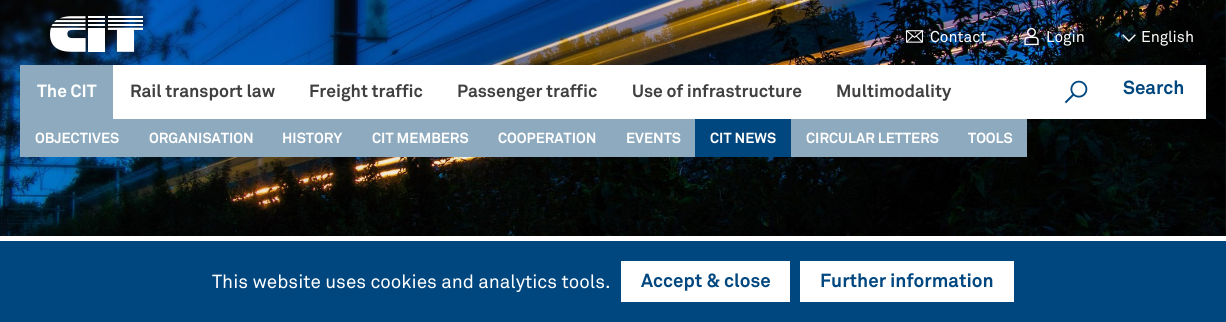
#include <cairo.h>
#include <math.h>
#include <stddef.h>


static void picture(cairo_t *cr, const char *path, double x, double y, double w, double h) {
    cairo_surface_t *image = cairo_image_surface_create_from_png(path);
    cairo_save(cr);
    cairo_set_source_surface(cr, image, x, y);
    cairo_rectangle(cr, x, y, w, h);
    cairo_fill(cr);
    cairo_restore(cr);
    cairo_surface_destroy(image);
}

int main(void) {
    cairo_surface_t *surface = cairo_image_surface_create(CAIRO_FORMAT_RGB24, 1226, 322);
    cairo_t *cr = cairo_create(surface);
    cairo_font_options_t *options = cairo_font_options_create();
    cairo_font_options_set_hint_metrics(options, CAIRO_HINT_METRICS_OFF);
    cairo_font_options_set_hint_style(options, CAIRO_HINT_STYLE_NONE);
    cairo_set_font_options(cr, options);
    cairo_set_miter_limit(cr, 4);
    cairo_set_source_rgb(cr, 1, 1, 1);
    cairo_paint(cr);
    picture(cr, "img1.png", 0, 0, 1226, 236);
    picture(cr, "img2.png", 50, 16, 93, 36);
    picture(cr, "img3.png", 906, 30, 17, 13);
    cairo_select_font_face(cr, "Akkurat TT", CAIRO_FONT_SLANT_NORMAL, CAIRO_FONT_WEIGHT_NORMAL);
    cairo_set_font_size(cr, 15.5);
    cairo_set_source_rgb(cr, 1, 1, 1);
    cairo_move_to(cr, 930, 42);
    cairo_show_text(cr, "Contact");
    picture(cr, "img4.png", 1024, 27, 15, 19);
    cairo_move_to(cr, 1046, 42);
    cairo_show_text(cr, "Login");
    picture(cr, "img5.png", 1122, 34, 14, 8);
    cairo_move_to(cr, 1141, 42);
    cairo_show_text(cr, "English");
    cairo_rectangle(cr, 113, 65, 1093, 54);
    cairo_fill(cr);
    cairo_set_source_rgb(cr, 0.557, 0.667, 0.749);
    cairo_rectangle(cr, 20, 65, 93, 54);
    cairo_fill(cr);
    cairo_select_font_face(cr, "Akkurat TT", CAIRO_FONT_SLANT_NORMAL, CAIRO_FONT_WEIGHT_BOLD);
    cairo_set_font_size(cr, 17.5);
    cairo_set_source_rgb(cr, 1, 1, 1);
    cairo_move_to(cr, 37, 97);
    cairo_show_text(cr, "The CIT");
    cairo_set_source_rgb(cr, 0.557, 0.667, 0.749);
    cairo_rectangle(cr, 20, 119, 675, 38);
    cairo_fill(cr);
    cairo_set_font_size(cr, 14.5);
    cairo_set_source_rgb(cr, 1, 1, 1);
    cairo_move_to(cr, 35, 143);
    cairo_show_text(cr, "OBJECTIVES");
    cairo_move_to(cr, 149, 143);
    cairo_show_text(cr, "ORGANISATION");
    cairo_move_to(cr, 282, 143);
    cairo_show_text(cr, "HISTORY");
    cairo_move_to(cr, 372, 143);
    cairo_show_text(cr, "CIT MEMBERS");
    cairo_move_to(cr, 498, 143);
    cairo_show_text(cr, "COOPERATION");
    cairo_move_to(cr, 626, 143);
    cairo_show_text(cr, "EVENTS");
    cairo_set_source_rgb(cr, 0, 0.278, 0.498);
    cairo_rectangle(cr, 695, 119, 96, 38);
    cairo_fill(cr);
    cairo_set_source_rgb(cr, 1, 1, 1);
    cairo_move_to(cr, 710, 143);
    cairo_show_text(cr, "CIT NEWS");
    cairo_set_source_rgb(cr, 0.557, 0.667, 0.749);
    cairo_rectangle(cr, 791, 119, 236, 38);
    cairo_fill(cr);
    cairo_set_source_rgb(cr, 1, 1, 1);
    cairo_move_to(cr, 806, 143);
    cairo_show_text(cr, "CIRCULAR LETTERS");
    cairo_move_to(cr, 968, 143);
    cairo_show_text(cr, "TOOLS");
    cairo_set_font_size(cr, 17.5);
    cairo_set_source_rgb(cr, 0.251, 0.251, 0.251);
    cairo_move_to(cr, 130, 97);
    cairo_show_text(cr, "Rail transport law");
    cairo_move_to(cr, 309, 97);
    cairo_show_text(cr, "Freight traffic");
    cairo_move_to(cr, 457, 97);
    cairo_show_text(cr, "Passenger traffic");
    cairo_move_to(cr, 632, 97);
    cairo_show_text(cr, "Use of infrastructure");
    cairo_move_to(cr, 836, 97);
    cairo_show_text(cr, "Multimodality");
    picture(cr, "img6.png", 1064, 80, 24, 24);
    cairo_set_font_size(cr, 18.8);
    cairo_set_source_rgb(cr, 0, 0.278, 0.498);
    cairo_move_to(cr, 1123, 94);
    cairo_show_text(cr, "Search");
    cairo_rectangle(cr, 0, 241, 1226, 81);
    cairo_fill(cr);
    cairo_select_font_face(cr, "Akkurat TT", CAIRO_FONT_SLANT_NORMAL, CAIRO_FONT_WEIGHT_NORMAL);
    cairo_set_source_rgb(cr, 1, 1, 1);
    cairo_move_to(cr, 212, 288);
    cairo_show_text(cr, "This website uses cookies and analytics tools.");
    cairo_rectangle(cr, 621, 261, 169, 41);
    cairo_fill(cr);
    cairo_select_font_face(cr, "Akkurat TT", CAIRO_FONT_SLANT_NORMAL, CAIRO_FONT_WEIGHT_BOLD);
    cairo_set_source_rgb(cr, 0, 0.278, 0.498);
    cairo_move_to(cr, 641, 287);
    cairo_show_text(cr, "Accept & close");
    cairo_set_source_rgb(cr, 1, 1, 1);
    cairo_rectangle(cr, 800, 261, 214, 41);
    cairo_fill(cr);
    cairo_set_source_rgb(cr, 0, 0.278, 0.498);
    cairo_move_to(cr, 820, 287);
    cairo_show_text(cr, "Further information");
    cairo_surface_write_to_png(surface, "page.png");
    cairo_font_options_destroy(options);
    cairo_destroy(cr);
    cairo_surface_destroy(surface);
    return 0;
}
